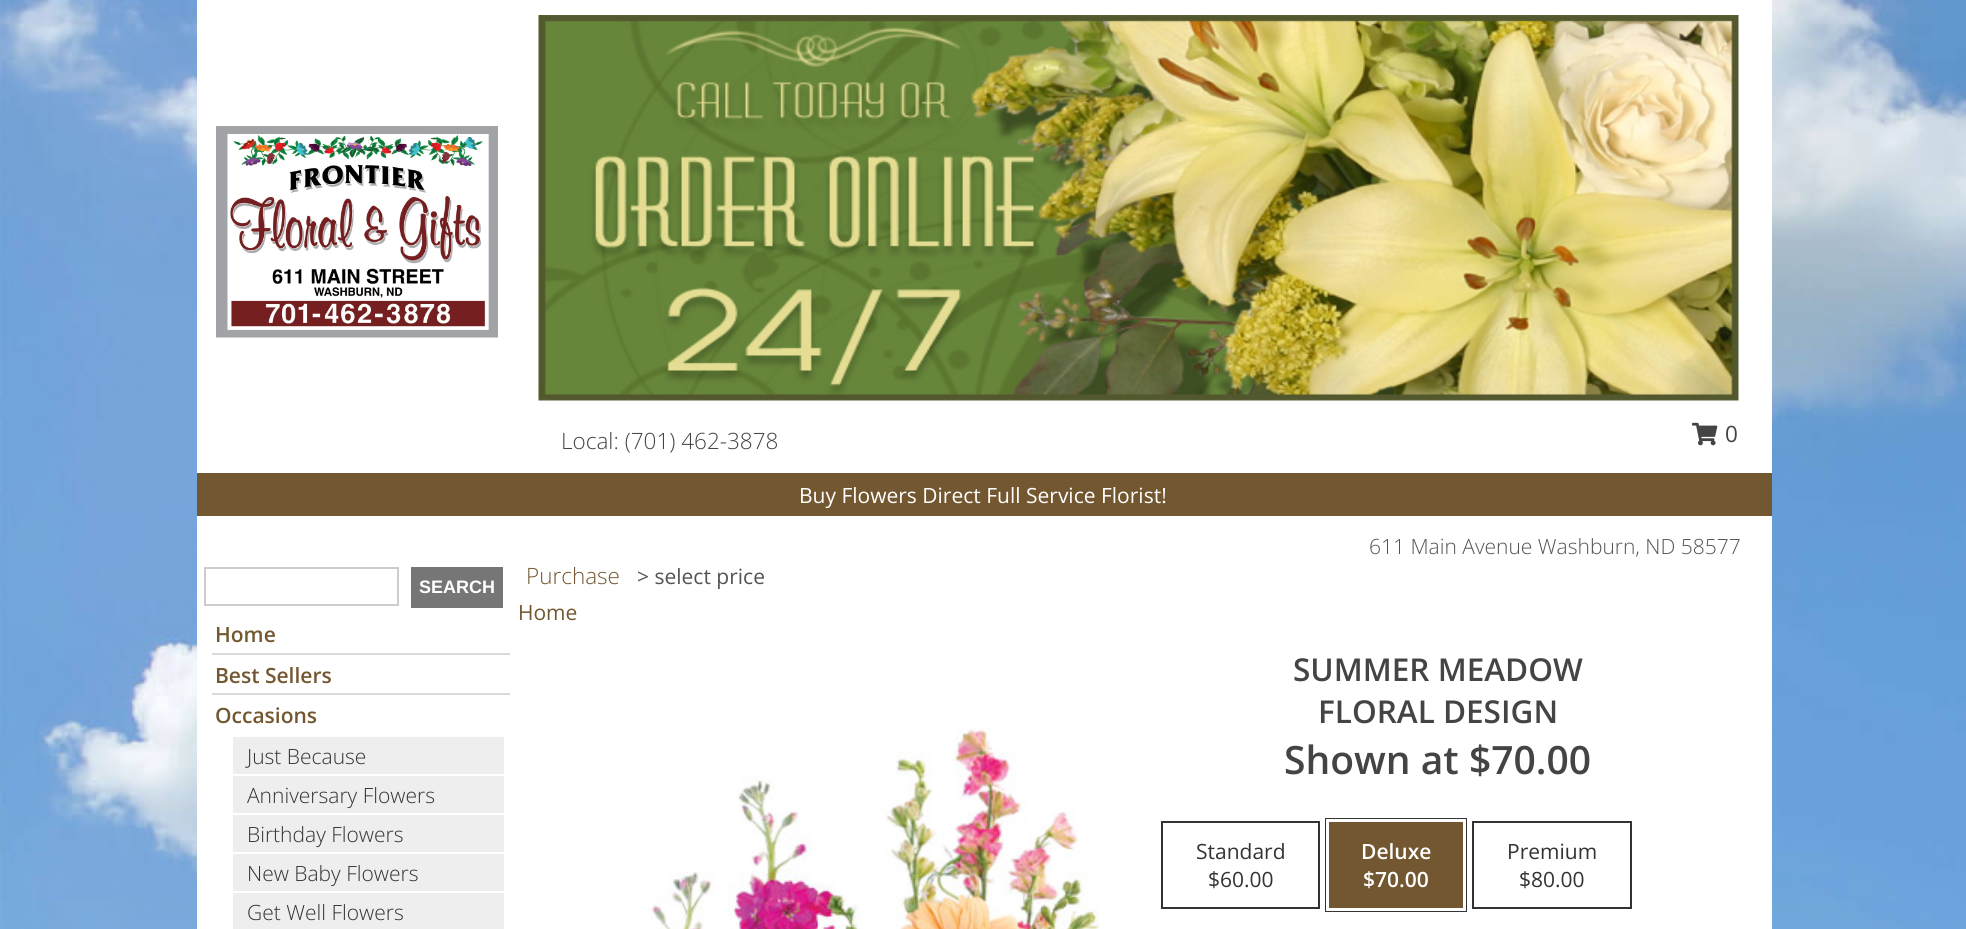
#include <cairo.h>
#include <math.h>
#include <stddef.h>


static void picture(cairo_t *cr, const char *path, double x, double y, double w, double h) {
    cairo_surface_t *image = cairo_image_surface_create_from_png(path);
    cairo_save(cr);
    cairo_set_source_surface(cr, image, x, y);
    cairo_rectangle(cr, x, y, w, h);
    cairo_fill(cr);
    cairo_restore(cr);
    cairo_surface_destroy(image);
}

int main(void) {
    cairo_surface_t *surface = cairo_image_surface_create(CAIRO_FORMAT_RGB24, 1966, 929);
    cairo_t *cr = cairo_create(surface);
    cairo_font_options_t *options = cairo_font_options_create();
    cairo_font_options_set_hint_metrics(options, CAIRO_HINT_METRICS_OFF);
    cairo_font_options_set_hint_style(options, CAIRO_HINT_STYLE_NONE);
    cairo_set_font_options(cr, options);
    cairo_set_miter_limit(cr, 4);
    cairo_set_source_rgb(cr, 1, 1, 1);
    cairo_paint(cr);
    picture(cr, "img1.png", 0, 0, 1966, 929);
    cairo_set_source_rgb(cr, 1, 1, 1);
    cairo_rectangle(cr, 197, 0, 1575, 929);
    cairo_fill(cr);
    picture(cr, "img2.png", 216, 126, 282, 212);
    picture(cr, "img3.png", 538, 15, 1201, 386);
    cairo_select_font_face(cr, "Open Sans Light", CAIRO_FONT_SLANT_NORMAL, CAIRO_FONT_WEIGHT_NORMAL);
    cairo_set_font_size(cr, 22.5);
    cairo_set_source_rgb(cr, 0.267, 0.267, 0.267);
    cairo_move_to(cr, 561, 449);
    cairo_show_text(cr, "Local: (701) 462-3878");
    picture(cr, "img4.png", 1692, 422, 26, 24);
    cairo_select_font_face(cr, "Open Sans", CAIRO_FONT_SLANT_NORMAL, CAIRO_FONT_WEIGHT_NORMAL);
    cairo_move_to(cr, 1725, 442);
    cairo_show_text(cr, "0");
    cairo_set_source_rgb(cr, 0.451, 0.341, 0.188);
    cairo_rectangle(cr, 197, 473, 1575, 43);
    cairo_fill(cr);
    cairo_set_font_size(cr, 21);
    cairo_set_source_rgb(cr, 1, 1, 1);
    cairo_move_to(cr, 799, 503);
    cairo_show_text(cr, "Buy Flowers Direct Full Service Florist!");
    cairo_select_font_face(cr, "Open Sans Light", CAIRO_FONT_SLANT_NORMAL, CAIRO_FONT_WEIGHT_NORMAL);
    cairo_set_source_rgb(cr, 0.325, 0.325, 0.325);
    cairo_move_to(cr, 1369, 554);
    cairo_show_text(cr, "611 Main Avenue Washburn, ND 58577");
    cairo_rectangle(cr, 205, 568, 193, 37);
    cairo_set_source_rgb(cr, 0.8, 0.8, 0.8);
    cairo_stroke(cr);
    cairo_set_source_rgb(cr, 0.463, 0.463, 0.463);
    cairo_rectangle(cr, 411, 567, 92, 41);
    cairo_fill(cr);
    cairo_select_font_face(cr, "Liberation Sans", CAIRO_FONT_SLANT_NORMAL, CAIRO_FONT_WEIGHT_BOLD);
    cairo_set_font_size(cr, 18);
    cairo_set_source_rgb(cr, 1, 1, 1);
    cairo_move_to(cr, 419, 593);
    cairo_show_text(cr, "SEARCH");
    cairo_set_source_rgb(cr, 0.855, 0.855, 0.855);
    cairo_rectangle(cr, 212, 653, 298, 2);
    cairo_fill(cr);
    cairo_select_font_face(cr, "Open Sans SemiBold", CAIRO_FONT_SLANT_NORMAL, CAIRO_FONT_WEIGHT_NORMAL);
    cairo_set_font_size(cr, 21);
    cairo_set_source_rgb(cr, 0.451, 0.341, 0.188);
    cairo_move_to(cr, 215, 642);
    cairo_show_text(cr, "Home");
    cairo_set_source_rgb(cr, 0.855, 0.855, 0.855);
    cairo_rectangle(cr, 212, 693, 298, 2);
    cairo_fill(cr);
    cairo_set_source_rgb(cr, 0.451, 0.341, 0.188);
    cairo_move_to(cr, 215, 683);
    cairo_show_text(cr, "Best Sellers");
    cairo_move_to(cr, 215, 723);
    cairo_show_text(cr, "Occasions");
    cairo_set_source_rgb(cr, 0.933, 0.933, 0.933);
    cairo_rectangle(cr, 233, 737, 271, 37);
    cairo_fill(cr);
    cairo_select_font_face(cr, "Open Sans Light", CAIRO_FONT_SLANT_NORMAL, CAIRO_FONT_WEIGHT_NORMAL);
    cairo_set_source_rgb(cr, 0.2, 0.2, 0.2);
    cairo_move_to(cr, 247, 764);
    cairo_show_text(cr, "Just Because");
    cairo_set_source_rgb(cr, 0.933, 0.933, 0.933);
    cairo_rectangle(cr, 233, 776, 271, 37);
    cairo_fill(cr);
    cairo_set_source_rgb(cr, 0.2, 0.2, 0.2);
    cairo_move_to(cr, 247, 803);
    cairo_show_text(cr, "Anniversary Flowers");
    cairo_set_source_rgb(cr, 0.933, 0.933, 0.933);
    cairo_rectangle(cr, 233, 815, 271, 37);
    cairo_fill(cr);
    cairo_set_source_rgb(cr, 0.2, 0.2, 0.2);
    cairo_move_to(cr, 247, 842);
    cairo_show_text(cr, "Birthday Flowers");
    cairo_set_source_rgb(cr, 0.933, 0.933, 0.933);
    cairo_rectangle(cr, 233, 854, 271, 37);
    cairo_fill(cr);
    cairo_set_source_rgb(cr, 0.2, 0.2, 0.2);
    cairo_move_to(cr, 247, 881);
    cairo_show_text(cr, "New Baby Flowers");
    cairo_set_source_rgb(cr, 0.933, 0.933, 0.933);
    cairo_rectangle(cr, 233, 893, 271, 36);
    cairo_fill(cr);
    cairo_set_source_rgb(cr, 0.2, 0.2, 0.2);
    cairo_move_to(cr, 247, 920);
    cairo_show_text(cr, "Get Well Flowers");
    cairo_set_font_size(cr, 22.5);
    cairo_set_source_rgb(cr, 0.451, 0.341, 0.188);
    cairo_move_to(cr, 526, 584);
    cairo_show_text(cr, "Purchase");
    cairo_select_font_face(cr, "Open Sans", CAIRO_FONT_SLANT_NORMAL, CAIRO_FONT_WEIGHT_NORMAL);
    cairo_set_font_size(cr, 21);
    cairo_set_source_rgb(cr, 0.325, 0.325, 0.325);
    cairo_move_to(cr, 637, 584);
    cairo_show_text(cr, "> select price");
    cairo_set_source_rgb(cr, 0.451, 0.341, 0.188);
    cairo_move_to(cr, 518, 620);
    cairo_show_text(cr, "Home");
    picture(cr, "img5.png", 647, 727, 453, 202);
    cairo_select_font_face(cr, "Open Sans SemiBold", CAIRO_FONT_SLANT_NORMAL, CAIRO_FONT_WEIGHT_NORMAL);
    cairo_set_font_size(cr, 31.5);
    cairo_set_source_rgb(cr, 0.267, 0.267, 0.267);
    cairo_move_to(cr, 1293, 681);
    cairo_show_text(cr, "SUMMER MEADOW");
    cairo_move_to(cr, 1318, 723);
    cairo_show_text(cr, "FLORAL DESIGN");
    cairo_set_font_size(cr, 39);
    cairo_move_to(cr, 1284, 774);
    cairo_show_text(cr, "Shown at $70.00");
    cairo_rectangle(cr, 1162, 822, 157, 86);
    cairo_set_source_rgb(cr, 0.2, 0.2, 0.2);
    cairo_stroke(cr);
    cairo_select_font_face(cr, "Open Sans", CAIRO_FONT_SLANT_NORMAL, CAIRO_FONT_WEIGHT_NORMAL);
    cairo_set_font_size(cr, 21);
    cairo_move_to(cr, 1196, 859);
    cairo_show_text(cr, "Standard");
    cairo_move_to(cr, 1208, 887);
    cairo_show_text(cr, "$60.00");
    cairo_rectangle(cr, 1326, 819, 140, 92);
    cairo_stroke(cr);
    cairo_set_source_rgb(cr, 0.451, 0.341, 0.188);
    cairo_rectangle(cr, 1327.5, 820.5, 137, 89);
    cairo_fill_preserve(cr);
    cairo_set_source_rgb(cr, 1, 1, 1);
    cairo_set_line_width(cr, 3);
    cairo_stroke(cr);
    cairo_select_font_face(cr, "Open Sans SemiBold", CAIRO_FONT_SLANT_NORMAL, CAIRO_FONT_WEIGHT_NORMAL);
    cairo_move_to(cr, 1361, 859);
    cairo_show_text(cr, "Deluxe");
    cairo_move_to(cr, 1363, 887);
    cairo_show_text(cr, "$70.00");
    cairo_rectangle(cr, 1473, 822, 158, 86);
    cairo_set_source_rgb(cr, 0.2, 0.2, 0.2);
    cairo_set_line_width(cr, 2);
    cairo_stroke(cr);
    cairo_select_font_face(cr, "Open Sans", CAIRO_FONT_SLANT_NORMAL, CAIRO_FONT_WEIGHT_NORMAL);
    cairo_move_to(cr, 1507, 859);
    cairo_show_text(cr, "Premium");
    cairo_move_to(cr, 1519, 887);
    cairo_show_text(cr, "$80.00");
    cairo_surface_write_to_png(surface, "page.png");
    cairo_font_options_destroy(options);
    cairo_destroy(cr);
    cairo_surface_destroy(surface);
    return 0;
}
